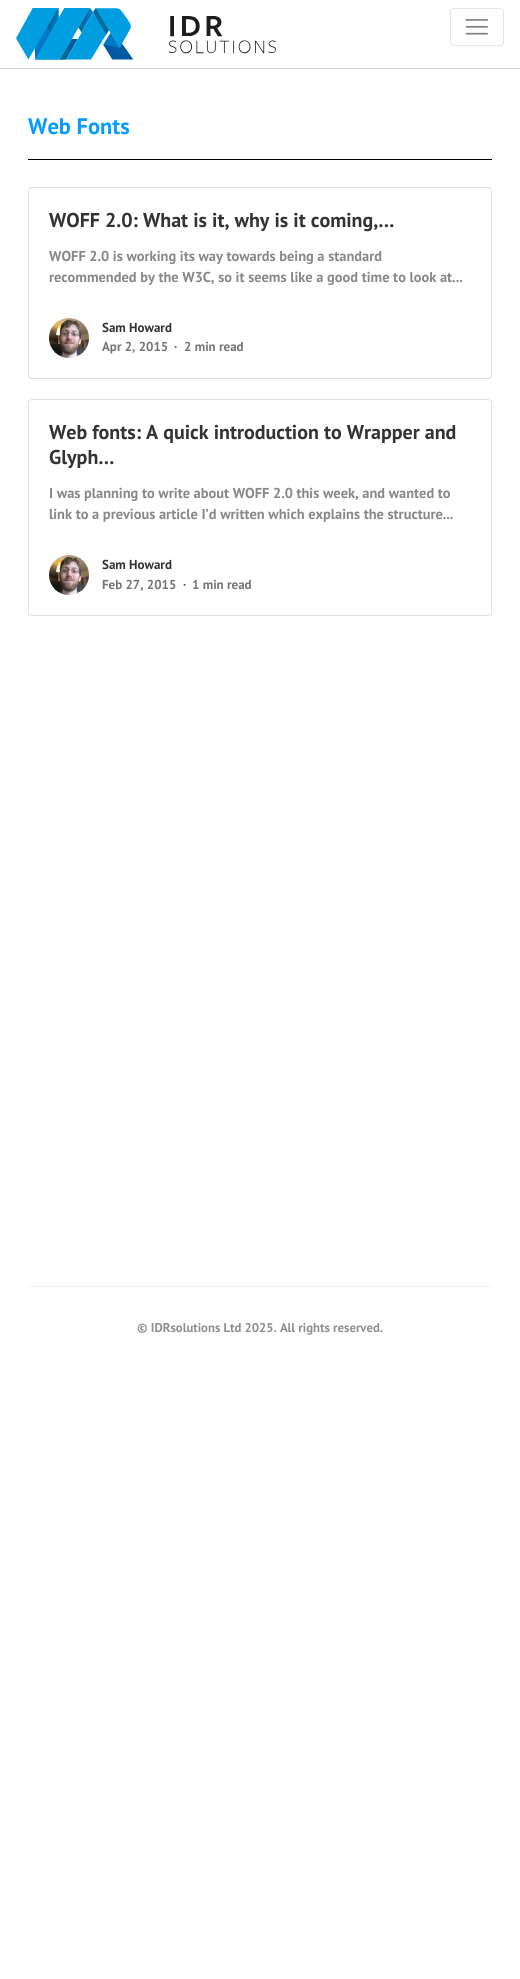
#include <cairo.h>
#include <math.h>
#include <stddef.h>


static void round_rect(cairo_t *cr, double x, double y, double w, double h, double r) {
    cairo_new_sub_path(cr);
    cairo_arc(cr, x + w - r, y + h - r, r, 0, M_PI / 2);
    cairo_arc(cr, x + r, y + h - r, r, M_PI / 2, M_PI);
    cairo_arc(cr, x + r, y + r, r, M_PI, 1.5 * M_PI);
    cairo_arc(cr, x + w - r, y + r, r, 1.5 * M_PI, 2 * M_PI);
    cairo_close_path(cr);
}

static void picture(cairo_t *cr, const char *path, double x, double y, double w, double h) {
    cairo_surface_t *image = cairo_image_surface_create_from_png(path);
    cairo_save(cr);
    cairo_set_source_surface(cr, image, x, y);
    cairo_rectangle(cr, x, y, w, h);
    cairo_fill(cr);
    cairo_restore(cr);
    cairo_surface_destroy(image);
}

int main(void) {
    cairo_surface_t *surface = cairo_image_surface_create(CAIRO_FORMAT_RGB24, 520, 1979);
    cairo_t *cr = cairo_create(surface);
    cairo_font_options_t *options = cairo_font_options_create();
    cairo_font_options_set_hint_metrics(options, CAIRO_HINT_METRICS_OFF);
    cairo_font_options_set_hint_style(options, CAIRO_HINT_STYLE_NONE);
    cairo_set_font_options(cr, options);
    cairo_set_miter_limit(cr, 4);
    cairo_set_source_rgb(cr, 1, 1, 1);
    cairo_paint(cr);
    cairo_set_source_rgb(cr, 0.827, 0.827, 0.827);
    cairo_rectangle(cr, 0, 68, 520, 1);
    cairo_fill(cr);
    picture(cr, "img1.png", 16, 8, 260, 52);
    round_rect(cr, 450.5, 8.5, 53, 37, 3.5);
    cairo_set_source_rgb(cr, 0.902, 0.902, 0.902);
    cairo_set_line_width(cr, 1);
    cairo_stroke(cr);
    picture(cr, "img2.png", 465, 19, 23, 16);
    cairo_set_source_rgb(cr, 0, 0, 0);
    cairo_rectangle(cr, 28, 159, 464, 1);
    cairo_fill(cr);
    cairo_select_font_face(cr, "PT Sans", CAIRO_FONT_SLANT_NORMAL, CAIRO_FONT_WEIGHT_BOLD);
    cairo_set_font_size(cr, 22.5);
    cairo_set_source_rgb(cr, 0.035, 0.612, 1);
    cairo_move_to(cr, 28, 134);
    cairo_show_text(cr, "Web Fonts");
    round_rect(cr, 28.5, 187.5, 463, 191, 3.5);
    cairo_set_source_rgb(cr, 0.875, 0.875, 0.875);
    cairo_stroke(cr);
    cairo_set_font_size(cr, 20);
    cairo_set_source_rgb(cr, 0.2, 0.2, 0.2);
    cairo_move_to(cr, 49, 227);
    cairo_show_text(cr, "WOFF 2.0: What is it, why is it coming,…");
    cairo_set_font_size(cr, 14.4);
    cairo_set_source_rgb(cr, 0.533, 0.533, 0.533);
    cairo_move_to(cr, 49, 261);
    cairo_show_text(cr, "WOFF 2.0 is working its way towards being a standard");
    cairo_move_to(cr, 49, 282);
    cairo_show_text(cr, "recommended by the W3C, so it seems like a good time to look at...");
    picture(cr, "img3.png", 49, 318, 40, 40);
    cairo_set_font_size(cr, 13);
    cairo_set_source_rgb(cr, 0.2, 0.2, 0.2);
    cairo_move_to(cr, 102, 332);
    cairo_show_text(cr, "Sam Howard");
    cairo_set_source_rgb(cr, 0.459, 0.459, 0.459);
    cairo_move_to(cr, 102, 351);
    cairo_show_text(cr, "Apr 2, 2015");
    cairo_set_source_rgb(cr, 0.4, 0.4, 0.4);
    cairo_move_to(cr, 174, 351);
    cairo_show_text(cr, "·");
    cairo_set_source_rgb(cr, 0.459, 0.459, 0.459);
    cairo_move_to(cr, 184, 351);
    cairo_show_text(cr, "2 min read");
    round_rect(cr, 28.5, 399.5, 463, 216, 3.5);
    cairo_set_source_rgb(cr, 0.875, 0.875, 0.875);
    cairo_stroke(cr);
    cairo_set_font_size(cr, 20);
    cairo_set_source_rgb(cr, 0.2, 0.2, 0.2);
    cairo_move_to(cr, 49, 439);
    cairo_show_text(cr, "Web fonts: A quick introduction to Wrapper and");
    cairo_move_to(cr, 49, 464);
    cairo_show_text(cr, "Glyph…");
    cairo_set_font_size(cr, 14.4);
    cairo_set_source_rgb(cr, 0.533, 0.533, 0.533);
    cairo_move_to(cr, 49, 498);
    cairo_show_text(cr, "I was planning to write about WOFF 2.0 this week, and wanted to");
    cairo_move_to(cr, 49, 519);
    cairo_show_text(cr, "link to a previous article I’d written which explains the structure...");
    picture(cr, "img3.png", 49, 555, 40, 40);
    cairo_set_font_size(cr, 13);
    cairo_set_source_rgb(cr, 0.2, 0.2, 0.2);
    cairo_move_to(cr, 102, 569);
    cairo_show_text(cr, "Sam Howard");
    cairo_set_source_rgb(cr, 0.459, 0.459, 0.459);
    cairo_move_to(cr, 102, 589);
    cairo_show_text(cr, "Feb 27, 2015");
    cairo_set_source_rgb(cr, 0.4, 0.4, 0.4);
    cairo_move_to(cr, 183, 589);
    cairo_show_text(cr, "·");
    cairo_set_source_rgb(cr, 0.459, 0.459, 0.459);
    cairo_move_to(cr, 192, 589);
    cairo_show_text(cr, "1 min read");
    cairo_set_source_rgb(cr, 0.949, 0.949, 0.949);
    cairo_rectangle(cr, 28, 1286, 464, 1);
    cairo_fill(cr);
    cairo_set_font_size(cr, 12.75);
    cairo_set_source_rgb(cr, 0.561, 0.561, 0.561);
    cairo_move_to(cr, 137, 1332);
    cairo_show_text(cr, "© IDRsolutions Ltd 2025. All rights reserved.");
    cairo_surface_write_to_png(surface, "page.png");
    cairo_font_options_destroy(options);
    cairo_destroy(cr);
    cairo_surface_destroy(surface);
    return 0;
}
